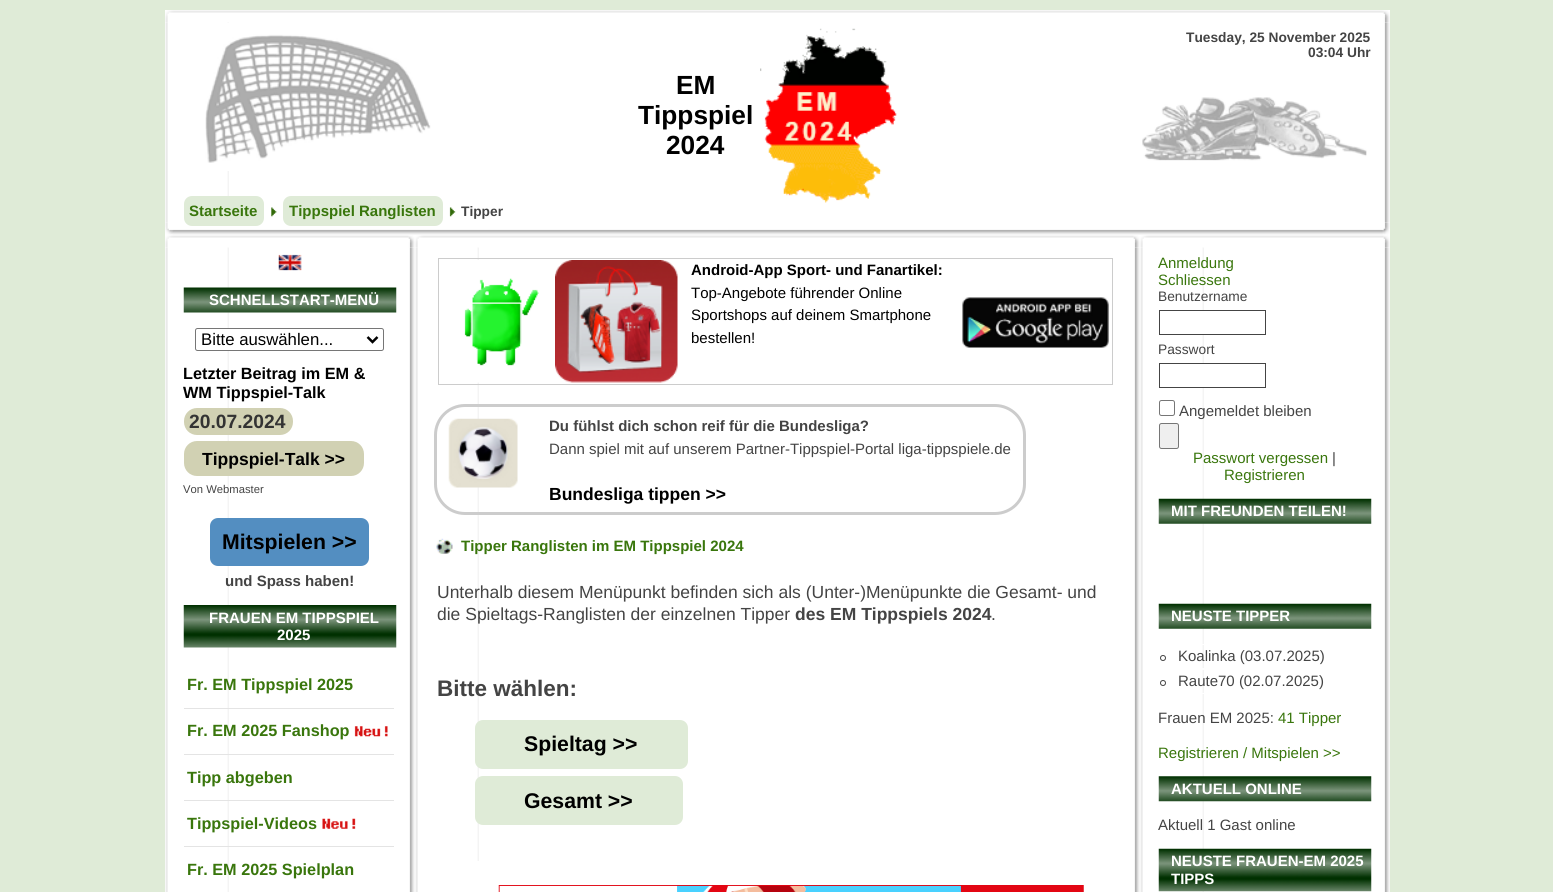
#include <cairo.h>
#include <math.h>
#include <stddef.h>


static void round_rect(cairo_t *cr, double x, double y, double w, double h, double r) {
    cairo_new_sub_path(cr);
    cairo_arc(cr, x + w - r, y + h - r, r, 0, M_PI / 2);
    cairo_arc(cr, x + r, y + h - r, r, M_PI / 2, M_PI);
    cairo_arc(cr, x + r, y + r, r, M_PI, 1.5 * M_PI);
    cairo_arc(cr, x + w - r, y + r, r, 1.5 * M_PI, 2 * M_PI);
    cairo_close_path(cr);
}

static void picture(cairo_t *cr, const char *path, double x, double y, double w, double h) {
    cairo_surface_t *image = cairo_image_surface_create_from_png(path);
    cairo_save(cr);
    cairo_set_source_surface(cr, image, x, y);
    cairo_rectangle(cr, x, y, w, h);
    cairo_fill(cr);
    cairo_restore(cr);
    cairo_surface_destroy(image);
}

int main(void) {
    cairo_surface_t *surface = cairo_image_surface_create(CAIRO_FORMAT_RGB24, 1553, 892);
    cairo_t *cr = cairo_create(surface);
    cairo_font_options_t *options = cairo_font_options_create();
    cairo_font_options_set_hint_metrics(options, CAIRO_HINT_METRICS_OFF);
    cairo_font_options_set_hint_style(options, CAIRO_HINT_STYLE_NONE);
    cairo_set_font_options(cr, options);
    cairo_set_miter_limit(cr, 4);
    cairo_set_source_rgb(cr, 0.875, 0.918, 0.843);
    cairo_paint(cr);
    cairo_set_source_rgb(cr, 1, 1, 1);
    cairo_rectangle(cr, 165, 22, 1225, 870);
    cairo_fill(cr);
    picture(cr, "img1.png", 165, 10, 1202, 13);
    picture(cr, "img2.png", 1366, 10, 24, 13);
    picture(cr, "img3.png", 165, 22, 64, 201);
    picture(cr, "img4.png", 1384, 22, 6, 201);
    picture(cr, "img5.png", 205, 23, 1162, 148);
    cairo_select_font_face(cr, "Liberation Sans", CAIRO_FONT_SLANT_NORMAL, CAIRO_FONT_WEIGHT_BOLD);
    cairo_set_font_size(cr, 13.75);
    cairo_set_source_rgb(cr, 0.267, 0.267, 0.267);
    cairo_move_to(cr, 1186, 42);
    cairo_show_text(cr, "Tuesday, 25 November 2025");
    cairo_move_to(cr, 1308, 57);
    cairo_show_text(cr, "03:04 Uhr");
    cairo_set_font_size(cr, 26.25);
    cairo_set_source_rgb(cr, 0, 0, 0);
    cairo_move_to(cr, 676, 94);
    cairo_show_text(cr, "EM");
    cairo_move_to(cr, 638, 124);
    cairo_show_text(cr, "Tippspiel");
    cairo_move_to(cr, 666, 154);
    cairo_show_text(cr, "2024");
    picture(cr, "img6.png", 760, 28, 137, 175);
    picture(cr, "img9.png", 165, 222, 1202, 13);
    cairo_set_source_rgb(cr, 0.875, 0.918, 0.843);
    round_rect(cr, 184, 196, 80, 30, 8);
    cairo_fill(cr);
    cairo_set_font_size(cr, 15);
    cairo_set_source_rgb(cr, 0.224, 0.463, 0.047);
    cairo_move_to(cr, 189, 216);
    cairo_show_text(cr, "Startseite");
    picture(cr, "img7.png", 271, 207, 6, 10);
    cairo_set_source_rgb(cr, 0.875, 0.918, 0.843);
    round_rect(cr, 283, 196, 160, 30, 8);
    cairo_fill(cr);
    cairo_set_source_rgb(cr, 0.224, 0.463, 0.047);
    cairo_move_to(cr, 289, 216);
    cairo_show_text(cr, "Tippspiel Ranglisten");
    picture(cr, "img8.png", 449, 207, 7, 10);
    cairo_set_font_size(cr, 13.75);
    cairo_set_source_rgb(cr, 0.267, 0.267, 0.267);
    cairo_move_to(cr, 461, 216);
    cairo_show_text(cr, "Tipper");
    picture(cr, "img10.png", 1366, 222, 24, 13);
    picture(cr, "img11.png", 165, 235, 250, 13);
    picture(cr, "img12.png", 408, 235, 7, 13);
    picture(cr, "img13.png", 165, 247, 64, 645);
    picture(cr, "img14.png", 409, 247, 6, 645);
    picture(cr, "img15.png", 278, 254, 24, 17);
    picture(cr, "img16.png", 183, 287, 214, 26);
    cairo_set_font_size(cr, 15);
    cairo_set_source_rgb(cr, 1, 1, 1);
    cairo_move_to(cr, 209, 305);
    cairo_show_text(cr, "SCHNELLSTART-MENÜ");
    round_rect(cr, 195.5, 328.5, 188, 22, 2);
    cairo_fill_preserve(cr);
    cairo_set_source_rgb(cr, 0.463, 0.463, 0.463);
    cairo_set_line_width(cr, 1);
    cairo_stroke(cr);
    cairo_new_path(cr);
    cairo_move_to(cr, 367.5, 337);
    cairo_line_to(cr, 372.5, 342);
    cairo_line_to(cr, 377.5, 337);
    cairo_set_source_rgb(cr, 0, 0, 0);
    cairo_set_line_width(cr, 2.5);
    cairo_stroke(cr);
    cairo_select_font_face(cr, "Liberation Sans", CAIRO_FONT_SLANT_NORMAL, CAIRO_FONT_WEIGHT_NORMAL);
    cairo_set_font_size(cr, 16.75);
    cairo_move_to(cr, 201, 345);
    cairo_show_text(cr, "Bitte auswählen...");
    cairo_select_font_face(cr, "Liberation Sans", CAIRO_FONT_SLANT_NORMAL, CAIRO_FONT_WEIGHT_BOLD);
    cairo_set_font_size(cr, 16.25);
    cairo_move_to(cr, 183, 379);
    cairo_show_text(cr, "Letzter Beitrag im EM &");
    cairo_move_to(cr, 183, 398);
    cairo_show_text(cr, "WM Tippspiel-Talk");
    cairo_set_source_rgb(cr, 0.82, 0.82, 0.702);
    round_rect(cr, 184, 408, 109, 27, 13);
    cairo_fill(cr);
    cairo_set_font_size(cr, 19.25);
    cairo_set_source_rgb(cr, 0.2, 0.2, 0.2);
    cairo_move_to(cr, 189, 428);
    cairo_show_text(cr, "20.07.2024");
    cairo_set_source_rgb(cr, 0.82, 0.82, 0.702);
    round_rect(cr, 184, 441, 180, 35, 13);
    cairo_fill(cr);
    cairo_set_font_size(cr, 17.5);
    cairo_set_source_rgb(cr, 0, 0, 0);
    cairo_move_to(cr, 202, 465);
    cairo_show_text(cr, "Tippspiel-Talk >>");
    cairo_select_font_face(cr, "Liberation Sans", CAIRO_FONT_SLANT_NORMAL, CAIRO_FONT_WEIGHT_NORMAL);
    cairo_set_font_size(cr, 11.25);
    cairo_set_source_rgb(cr, 0.267, 0.267, 0.267);
    cairo_move_to(cr, 183, 493);
    cairo_show_text(cr, "Von Webmaster");
    cairo_set_source_rgb(cr, 0.325, 0.557, 0.757);
    round_rect(cr, 210, 518, 159, 48, 8);
    cairo_fill(cr);
    cairo_select_font_face(cr, "Liberation Sans", CAIRO_FONT_SLANT_NORMAL, CAIRO_FONT_WEIGHT_BOLD);
    cairo_set_font_size(cr, 21.25);
    cairo_set_source_rgb(cr, 0, 0, 0);
    cairo_move_to(cr, 222, 549);
    cairo_show_text(cr, "Mitspielen >>");
    cairo_set_font_size(cr, 15);
    cairo_set_source_rgb(cr, 0.267, 0.267, 0.267);
    cairo_move_to(cr, 225, 586);
    cairo_show_text(cr, "und Spass haben!");
    picture(cr, "img17.png", 183, 605, 214, 43);
    cairo_set_source_rgb(cr, 1, 1, 1);
    cairo_move_to(cr, 209, 623);
    cairo_show_text(cr, "FRAUEN EM TIPPSPIEL");
    cairo_move_to(cr, 277, 640);
    cairo_show_text(cr, "2025");
    cairo_set_source_rgb(cr, 0.894, 0.894, 0.894);
    cairo_rectangle(cr, 184, 708, 210, 1);
    cairo_fill(cr);
    cairo_set_font_size(cr, 16.25);
    cairo_set_source_rgb(cr, 0.224, 0.463, 0.047);
    cairo_move_to(cr, 187, 690);
    cairo_show_text(cr, "Fr. EM Tippspiel 2025");
    cairo_set_source_rgb(cr, 0.894, 0.894, 0.894);
    cairo_rectangle(cr, 184, 754, 210, 1);
    cairo_fill(cr);
    cairo_set_source_rgb(cr, 0.224, 0.463, 0.047);
    cairo_move_to(cr, 187, 736);
    cairo_show_text(cr, "Fr. EM 2025 Fanshop");
    picture(cr, "img18.png", 354, 726, 34, 11);
    cairo_set_source_rgb(cr, 0.894, 0.894, 0.894);
    cairo_rectangle(cr, 184, 800, 210, 1);
    cairo_fill(cr);
    cairo_set_source_rgb(cr, 0.224, 0.463, 0.047);
    cairo_move_to(cr, 187, 783);
    cairo_show_text(cr, "Tipp abgeben");
    cairo_set_source_rgb(cr, 0.894, 0.894, 0.894);
    cairo_rectangle(cr, 184, 846, 210, 1);
    cairo_fill(cr);
    cairo_set_source_rgb(cr, 0.224, 0.463, 0.047);
    cairo_move_to(cr, 187, 829);
    cairo_show_text(cr, "Tippspiel-Videos");
    picture(cr, "img19.png", 322, 818, 34, 11);
    cairo_move_to(cr, 187, 875);
    cairo_show_text(cr, "Fr. EM 2025 Spielplan");
    picture(cr, "img20.png", 415, 235, 725, 13);
    picture(cr, "img12.png", 1133, 235, 7, 13);
    picture(cr, "img13.png", 415, 247, 64, 645);
    picture(cr, "img14.png", 1134, 247, 6, 645);
    cairo_rectangle(cr, 438.5, 258.5, 674, 126);
    cairo_set_source_rgb(cr, 0.8, 0.8, 0.8);
    cairo_set_line_width(cr, 1);
    cairo_stroke(cr);
    picture(cr, "img21.png", 464, 260, 75, 123);
    picture(cr, "img22.png", 555, 260, 123, 123);
    cairo_set_font_size(cr, 15);
    cairo_set_source_rgb(cr, 0, 0, 0);
    cairo_move_to(cr, 691, 275);
    cairo_show_text(cr, "Android-App Sport- und Fanartikel:");
    cairo_select_font_face(cr, "Liberation Sans", CAIRO_FONT_SLANT_NORMAL, CAIRO_FONT_WEIGHT_NORMAL);
    cairo_move_to(cr, 691, 298);
    cairo_show_text(cr, "Top-Angebote führender Online");
    cairo_move_to(cr, 691, 320);
    cairo_show_text(cr, "Sportshops auf deinem Smartphone");
    cairo_move_to(cr, 691, 343);
    cairo_show_text(cr, "bestellen!");
    picture(cr, "img23.png", 962, 297, 147, 51);
    round_rect(cr, 435.5, 405.5, 589, 108, 29.5);
    cairo_set_source_rgb(cr, 0.8, 0.8, 0.8);
    cairo_set_line_width(cr, 3);
    cairo_stroke(cr);
    picture(cr, "img24.png", 448, 418, 70, 70);
    cairo_select_font_face(cr, "Liberation Sans", CAIRO_FONT_SLANT_NORMAL, CAIRO_FONT_WEIGHT_BOLD);
    cairo_set_source_rgb(cr, 0.267, 0.267, 0.267);
    cairo_move_to(cr, 549, 431);
    cairo_show_text(cr, "Du fühlst dich schon reif für die Bundesliga?");
    cairo_select_font_face(cr, "Liberation Sans", CAIRO_FONT_SLANT_NORMAL, CAIRO_FONT_WEIGHT_NORMAL);
    cairo_move_to(cr, 549, 454);
    cairo_show_text(cr, "Dann spiel mit auf unserem Partner-Tippspiel-Portal liga-tippspiele.de");
    cairo_select_font_face(cr, "Liberation Sans", CAIRO_FONT_SLANT_NORMAL, CAIRO_FONT_WEIGHT_BOLD);
    cairo_set_font_size(cr, 17.5);
    cairo_set_source_rgb(cr, 0, 0, 0);
    cairo_move_to(cr, 549, 500);
    cairo_show_text(cr, "Bundesliga tippen >>");
    picture(cr, "img25.png", 436, 538, 17, 16);
    cairo_set_font_size(cr, 15);
    cairo_set_source_rgb(cr, 0.224, 0.463, 0.047);
    cairo_move_to(cr, 461, 551);
    cairo_show_text(cr, "Tipper Ranglisten im EM Tippspiel 2024");
    cairo_select_font_face(cr, "Liberation Sans", CAIRO_FONT_SLANT_NORMAL, CAIRO_FONT_WEIGHT_NORMAL);
    cairo_set_font_size(cr, 17.5);
    cairo_set_source_rgb(cr, 0.267, 0.267, 0.267);
    cairo_move_to(cr, 437, 598);
    cairo_show_text(cr, "Unterhalb diesem Menüpunkt befinden sich als (Unter-)Menüpunkte die Gesamt- und");
    cairo_move_to(cr, 437, 620);
    cairo_show_text(cr, "die Spieltags-Ranglisten der einzelnen Tipper");
    cairo_select_font_face(cr, "Liberation Sans", CAIRO_FONT_SLANT_NORMAL, CAIRO_FONT_WEIGHT_BOLD);
    cairo_move_to(cr, 795, 620);
    cairo_show_text(cr, "des EM Tippspiels 2024");
    cairo_select_font_face(cr, "Liberation Sans", CAIRO_FONT_SLANT_NORMAL, CAIRO_FONT_WEIGHT_NORMAL);
    cairo_move_to(cr, 991, 620);
    cairo_show_text(cr, ".");
    cairo_select_font_face(cr, "Liberation Sans", CAIRO_FONT_SLANT_NORMAL, CAIRO_FONT_WEIGHT_BOLD);
    cairo_set_font_size(cr, 22.5);
    cairo_move_to(cr, 437, 696);
    cairo_show_text(cr, "Bitte wählen:");
    cairo_set_source_rgb(cr, 0.875, 0.918, 0.843);
    round_rect(cr, 475, 720, 213, 49, 8);
    cairo_fill(cr);
    cairo_set_font_size(cr, 21.25);
    cairo_set_source_rgb(cr, 0, 0, 0);
    cairo_move_to(cr, 524, 751);
    cairo_show_text(cr, "Spieltag >>");
    cairo_set_source_rgb(cr, 0.875, 0.918, 0.843);
    round_rect(cr, 475, 776, 208, 49, 8);
    cairo_fill(cr);
    cairo_set_source_rgb(cr, 0, 0, 0);
    cairo_move_to(cr, 524, 808);
    cairo_show_text(cr, "Gesamt >>");
    cairo_set_source_rgb(cr, 1, 1, 1);
    cairo_rectangle(cr, 477, 861, 2, 31);
    cairo_fill(cr);
    picture(cr, "img26.png", 498, 885, 586, 7);
    picture(cr, "img27.png", 1140, 235, 250, 13);
    picture(cr, "img12.png", 1383, 235, 7, 13);
    picture(cr, "img13.png", 1140, 247, 64, 645);
    picture(cr, "img14.png", 1384, 247, 6, 645);
    cairo_select_font_face(cr, "Liberation Sans", CAIRO_FONT_SLANT_NORMAL, CAIRO_FONT_WEIGHT_NORMAL);
    cairo_set_font_size(cr, 15);
    cairo_set_source_rgb(cr, 0.224, 0.463, 0.047);
    cairo_move_to(cr, 1158, 268);
    cairo_show_text(cr, "Anmeldung");
    cairo_move_to(cr, 1158, 285);
    cairo_show_text(cr, "Schliessen");
    cairo_set_font_size(cr, 13.75);
    cairo_set_source_rgb(cr, 0.267, 0.267, 0.267);
    cairo_move_to(cr, 1158, 301);
    cairo_show_text(cr, "Benutzername");
    cairo_set_source_rgb(cr, 1, 1, 1);
    cairo_rectangle(cr, 1202, 311, 2, 23);
    cairo_fill(cr);
    cairo_rectangle(cr, 1159.5, 310.5, 106, 24);
    cairo_set_source_rgb(cr, 0.267, 0.267, 0.267);
    cairo_set_line_width(cr, 1);
    cairo_stroke(cr);
    cairo_move_to(cr, 1158, 354);
    cairo_show_text(cr, "Passwort");
    cairo_set_source_rgb(cr, 1, 1, 1);
    cairo_rectangle(cr, 1202, 364, 2, 23);
    cairo_fill(cr);
    cairo_rectangle(cr, 1159.5, 363.5, 106, 24);
    cairo_set_source_rgb(cr, 0.267, 0.267, 0.267);
    cairo_stroke(cr);
    round_rect(cr, 1159.5, 400.5, 15, 15, 2);
    cairo_set_source_rgb(cr, 0.463, 0.463, 0.463);
    cairo_stroke(cr);
    cairo_set_font_size(cr, 15);
    cairo_set_source_rgb(cr, 0.267, 0.267, 0.267);
    cairo_move_to(cr, 1179, 416);
    cairo_show_text(cr, "Angemeldet bleiben");
    cairo_set_source_rgb(cr, 0.937, 0.937, 0.937);
    round_rect(cr, 1159.5, 423.5, 19, 25, 2);
    cairo_fill_preserve(cr);
    cairo_set_source_rgb(cr, 0.463, 0.463, 0.463);
    cairo_stroke(cr);
    cairo_set_source_rgb(cr, 0.224, 0.463, 0.047);
    cairo_move_to(cr, 1193, 463);
    cairo_show_text(cr, "Passwort vergessen");
    cairo_set_source_rgb(cr, 0.267, 0.267, 0.267);
    cairo_move_to(cr, 1332, 463);
    cairo_show_text(cr, "|");
    cairo_set_source_rgb(cr, 0.224, 0.463, 0.047);
    cairo_move_to(cr, 1224, 480);
    cairo_show_text(cr, "Registrieren");
    picture(cr, "img28.png", 1158, 498, 214, 26);
    cairo_select_font_face(cr, "Liberation Sans", CAIRO_FONT_SLANT_NORMAL, CAIRO_FONT_WEIGHT_BOLD);
    cairo_set_source_rgb(cr, 1, 1, 1);
    cairo_move_to(cr, 1171, 516);
    cairo_show_text(cr, "MIT FREUNDEN TEILEN!");
    picture(cr, "img29.png", 1158, 603, 214, 26);
    cairo_move_to(cr, 1171, 621);
    cairo_show_text(cr, "NEUSTE TIPPER");
    cairo_rectangle(cr, 1178.5, 644.5, 192, 24);
    cairo_stroke(cr);
    cairo_arc(cr, 1163, 658, 2.5, 0, 2 * M_PI);
    cairo_set_source_rgb(cr, 0.267, 0.267, 0.267);
    cairo_stroke(cr);
    cairo_select_font_face(cr, "Liberation Sans", CAIRO_FONT_SLANT_NORMAL, CAIRO_FONT_WEIGHT_NORMAL);
    cairo_move_to(cr, 1178, 661);
    cairo_show_text(cr, "Koalinka (03.07.2025)");
    cairo_rectangle(cr, 1178.5, 669.5, 192, 24);
    cairo_set_source_rgb(cr, 1, 1, 1);
    cairo_stroke(cr);
    cairo_arc(cr, 1163, 683, 2.5, 0, 2 * M_PI);
    cairo_set_source_rgb(cr, 0.267, 0.267, 0.267);
    cairo_stroke(cr);
    cairo_move_to(cr, 1178, 686);
    cairo_show_text(cr, "Raute70 (02.07.2025)");
    cairo_move_to(cr, 1158, 723);
    cairo_show_text(cr, "Frauen EM 2025:");
    cairo_set_source_rgb(cr, 0.224, 0.463, 0.047);
    cairo_move_to(cr, 1278, 723);
    cairo_show_text(cr, "41 Tipper");
    cairo_move_to(cr, 1158, 758);
    cairo_show_text(cr, "Registrieren / Mitspielen >>");
    picture(cr, "img30.png", 1158, 776, 214, 26);
    cairo_select_font_face(cr, "Liberation Sans", CAIRO_FONT_SLANT_NORMAL, CAIRO_FONT_WEIGHT_BOLD);
    cairo_set_source_rgb(cr, 1, 1, 1);
    cairo_move_to(cr, 1171, 794);
    cairo_show_text(cr, "AKTUELL ONLINE");
    cairo_select_font_face(cr, "Liberation Sans", CAIRO_FONT_SLANT_NORMAL, CAIRO_FONT_WEIGHT_NORMAL);
    cairo_set_source_rgb(cr, 0.267, 0.267, 0.267);
    cairo_move_to(cr, 1158, 830);
    cairo_show_text(cr, "Aktuell 1 Gast online");
    picture(cr, "img31.png", 1158, 848, 214, 44);
    cairo_select_font_face(cr, "Liberation Sans", CAIRO_FONT_SLANT_NORMAL, CAIRO_FONT_WEIGHT_BOLD);
    cairo_set_source_rgb(cr, 1, 1, 1);
    cairo_move_to(cr, 1171, 866);
    cairo_show_text(cr, "NEUSTE FRAUEN-EM 2025");
    cairo_move_to(cr, 1171, 884);
    cairo_show_text(cr, "TIPPS");
    cairo_surface_write_to_png(surface, "page.png");
    cairo_font_options_destroy(options);
    cairo_destroy(cr);
    cairo_surface_destroy(surface);
    return 0;
}
